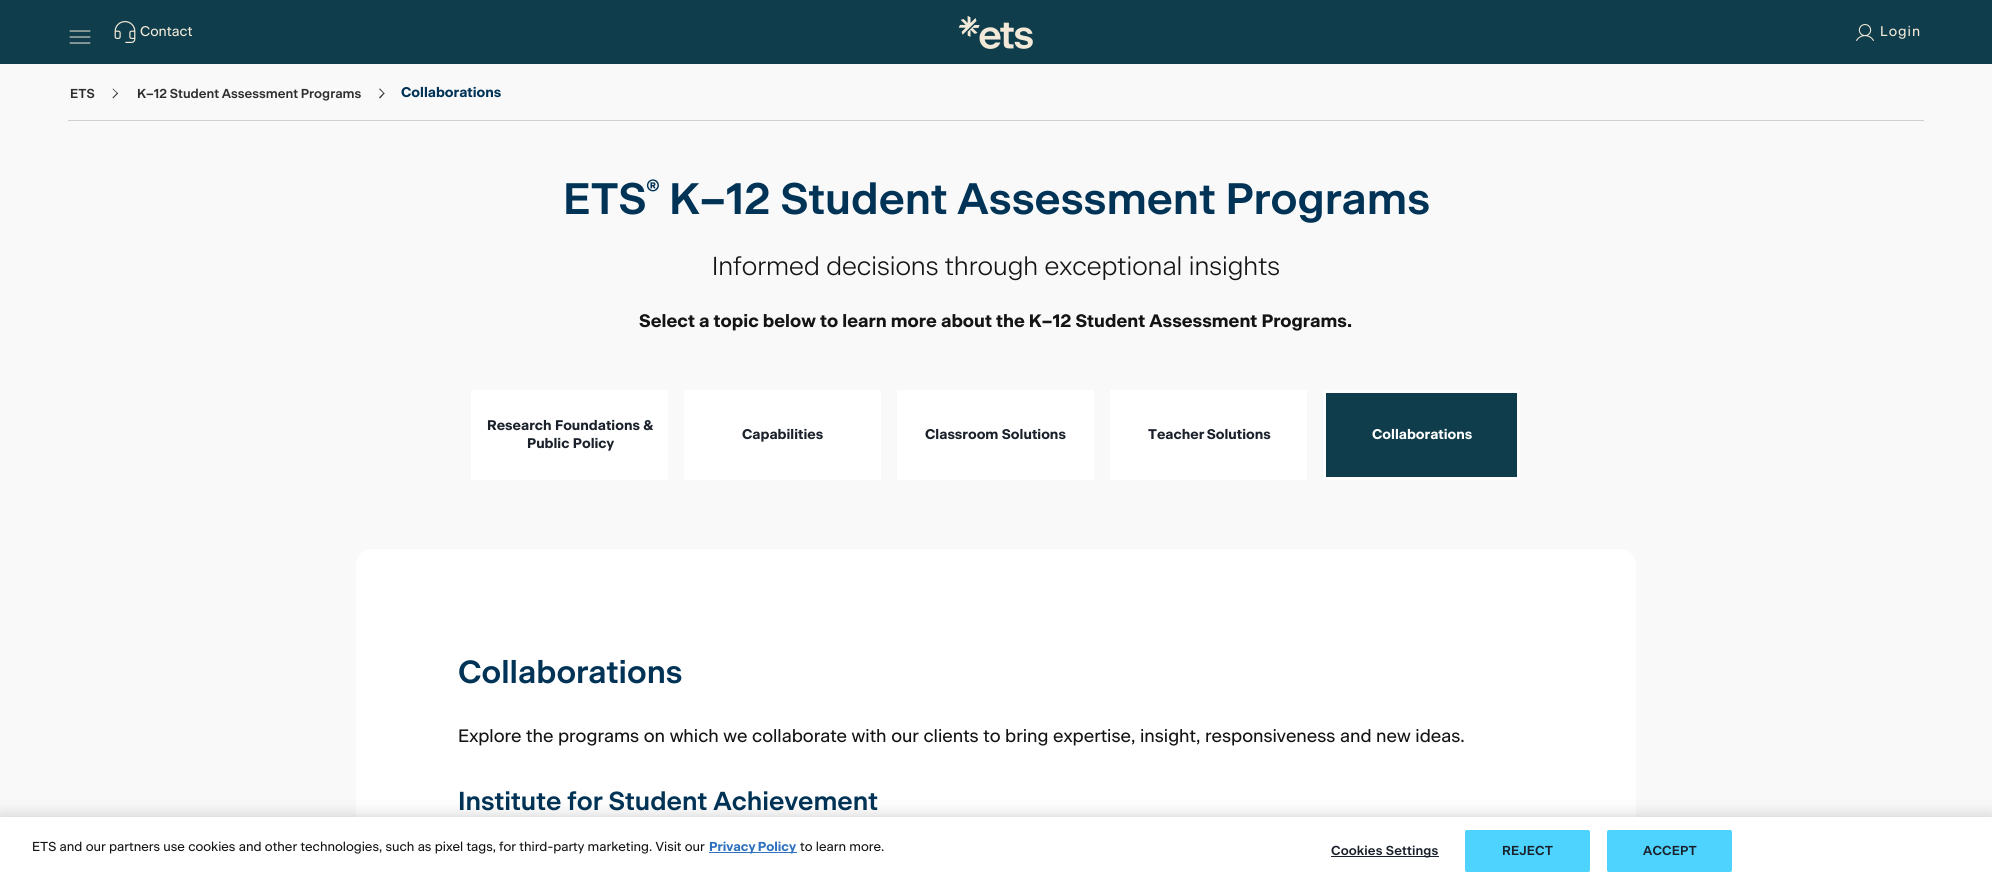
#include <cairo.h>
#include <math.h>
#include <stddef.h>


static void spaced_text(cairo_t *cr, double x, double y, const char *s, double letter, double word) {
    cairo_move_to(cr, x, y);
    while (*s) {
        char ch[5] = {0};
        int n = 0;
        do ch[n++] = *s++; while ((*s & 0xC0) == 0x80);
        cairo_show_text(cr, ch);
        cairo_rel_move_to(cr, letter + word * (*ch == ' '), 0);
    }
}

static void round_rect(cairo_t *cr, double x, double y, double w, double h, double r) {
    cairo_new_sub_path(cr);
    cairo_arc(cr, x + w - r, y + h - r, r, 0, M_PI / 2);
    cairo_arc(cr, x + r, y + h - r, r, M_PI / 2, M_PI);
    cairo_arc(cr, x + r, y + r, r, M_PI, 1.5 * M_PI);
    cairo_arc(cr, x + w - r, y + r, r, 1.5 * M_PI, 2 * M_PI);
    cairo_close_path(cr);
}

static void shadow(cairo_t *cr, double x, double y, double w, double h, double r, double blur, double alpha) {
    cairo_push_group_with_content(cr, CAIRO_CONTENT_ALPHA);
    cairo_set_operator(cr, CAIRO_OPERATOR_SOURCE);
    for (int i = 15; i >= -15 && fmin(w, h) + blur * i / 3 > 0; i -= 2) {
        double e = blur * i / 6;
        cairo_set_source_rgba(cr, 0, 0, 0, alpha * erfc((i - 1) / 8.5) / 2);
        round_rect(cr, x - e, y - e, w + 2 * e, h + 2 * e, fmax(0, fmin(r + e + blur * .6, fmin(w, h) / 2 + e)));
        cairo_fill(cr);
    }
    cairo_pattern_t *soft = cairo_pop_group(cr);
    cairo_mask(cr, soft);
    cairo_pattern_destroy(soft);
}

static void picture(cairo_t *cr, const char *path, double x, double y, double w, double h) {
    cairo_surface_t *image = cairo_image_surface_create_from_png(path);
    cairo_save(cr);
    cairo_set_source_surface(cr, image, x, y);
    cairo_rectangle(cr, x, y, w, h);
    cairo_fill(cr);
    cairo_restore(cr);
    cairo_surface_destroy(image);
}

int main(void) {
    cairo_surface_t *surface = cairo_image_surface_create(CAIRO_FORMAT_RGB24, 1992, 888);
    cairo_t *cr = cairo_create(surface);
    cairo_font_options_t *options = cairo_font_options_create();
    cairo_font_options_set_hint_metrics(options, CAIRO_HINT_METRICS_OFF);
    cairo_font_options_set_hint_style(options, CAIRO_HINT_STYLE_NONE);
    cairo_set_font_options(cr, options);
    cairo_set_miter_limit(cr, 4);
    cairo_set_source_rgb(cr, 0.973, 0.973, 0.973);
    cairo_paint(cr);
    cairo_set_source_rgb(cr, 0.063, 0.239, 0.294);
    cairo_rectangle(cr, 0, 0, 1992, 64);
    cairo_fill(cr);
    picture(cr, "img1.png", 69, 30, 22, 14);
    picture(cr, "img2.png", 114, 21, 22, 22);
    cairo_select_font_face(cr, "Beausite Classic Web", CAIRO_FONT_SLANT_NORMAL, CAIRO_FONT_WEIGHT_NORMAL);
    cairo_set_font_size(cr, 14);
    cairo_set_source_rgb(cr, 0.949, 0.914, 0.847);
    cairo_move_to(cr, 140, 36);
    cairo_show_text(cr, "Contact");
    picture(cr, "img3.png", 958, 16, 75, 33);
    picture(cr, "img4.png", 1856, 24, 18, 17);
    spaced_text(cr, 1880, 36, "Login", 1, 0);
    cairo_set_source_rgb(cr, 0.816, 0.816, 0.816);
    cairo_rectangle(cr, 68, 120, 1856, 1);
    cairo_fill(cr);
    cairo_select_font_face(cr, "Beausite Classic Web SemiBold", CAIRO_FONT_SLANT_NORMAL, CAIRO_FONT_WEIGHT_NORMAL);
    cairo_set_font_size(cr, 13);
    cairo_set_source_rgb(cr, 0.18, 0.18, 0.18);
    cairo_move_to(cr, 70, 98);
    cairo_show_text(cr, "ETS");
    cairo_new_path(cr);
    cairo_move_to(cr, 112.5, 89);
    cairo_line_to(cr, 113, 88.5);
    cairo_line_to(cr, 118, 93.5);
    cairo_line_to(cr, 117.5, 94);
    cairo_close_path(cr);
    cairo_fill(cr);
    cairo_new_path(cr);
    cairo_move_to(cr, 112.5, 97.5);
    cairo_line_to(cr, 117.5, 92.5);
    cairo_line_to(cr, 118, 93.5);
    cairo_line_to(cr, 113, 98.5);
    cairo_close_path(cr);
    cairo_fill(cr);
    spaced_text(cr, 137, 98, "K–12 Student Assessment Programs", 0, -0.5);
    cairo_new_path(cr);
    cairo_move_to(cr, 379, 89);
    cairo_line_to(cr, 380, 88.5);
    cairo_line_to(cr, 384.5, 93.5);
    cairo_line_to(cr, 384, 94);
    cairo_close_path(cr);
    cairo_fill(cr);
    cairo_new_path(cr);
    cairo_move_to(cr, 379, 97.5);
    cairo_line_to(cr, 384, 92.5);
    cairo_line_to(cr, 384.5, 93.5);
    cairo_line_to(cr, 380, 98.5);
    cairo_close_path(cr);
    cairo_fill(cr);
    cairo_select_font_face(cr, "Beausite Classic Web", CAIRO_FONT_SLANT_NORMAL, CAIRO_FONT_WEIGHT_BOLD);
    cairo_set_font_size(cr, 14);
    cairo_set_source_rgb(cr, 0, 0.2, 0.337);
    cairo_move_to(cr, 401, 97);
    cairo_show_text(cr, "Collaborations");
    cairo_select_font_face(cr, "Beausite Classic Web SemiBold", CAIRO_FONT_SLANT_NORMAL, CAIRO_FONT_WEIGHT_NORMAL);
    cairo_set_font_size(cr, 44);
    cairo_move_to(cr, 563, 214);
    cairo_show_text(cr, "ETS");
    cairo_set_font_size(cr, 29);
    cairo_move_to(cr, 646, 200);
    cairo_show_text(cr, "®");
    cairo_set_font_size(cr, 44);
    spaced_text(cr, 669, 214, "K–12 Student Assessment Programs", 0, -1);
    cairo_select_font_face(cr, "Beausite Classic Web Light", CAIRO_FONT_SLANT_NORMAL, CAIRO_FONT_WEIGHT_NORMAL);
    cairo_set_font_size(cr, 26);
    cairo_set_source_rgb(cr, 0.082, 0.082, 0.082);
    spaced_text(cr, 712, 275, "Informed decisions through exceptional insights", 0, -0.5);
    cairo_select_font_face(cr, "Beausite Classic Web", CAIRO_FONT_SLANT_NORMAL, CAIRO_FONT_WEIGHT_BOLD);
    cairo_set_font_size(cr, 18);
    spaced_text(cr, 639, 327, "Select a topic below to learn more about the K–12 Student Assessment Programs.", 0, -0.25);
    cairo_set_source_rgb(cr, 1, 1, 1);
    cairo_rectangle(cr, 471, 390, 197, 90);
    cairo_fill(cr);
    cairo_set_font_size(cr, 14);
    cairo_set_source_rgb(cr, 0.102, 0.129, 0.169);
    cairo_move_to(cr, 487, 430);
    cairo_show_text(cr, "Research Foundations &");
    cairo_move_to(cr, 527, 448);
    cairo_show_text(cr, "Public Policy");
    cairo_set_source_rgb(cr, 1, 1, 1);
    cairo_rectangle(cr, 684, 390, 197, 90);
    cairo_fill(cr);
    cairo_set_source_rgb(cr, 0.102, 0.129, 0.169);
    cairo_move_to(cr, 742, 439);
    cairo_show_text(cr, "Capabilities");
    cairo_set_source_rgb(cr, 1, 1, 1);
    cairo_rectangle(cr, 897, 390, 197, 90);
    cairo_fill(cr);
    cairo_set_source_rgb(cr, 0.102, 0.129, 0.169);
    cairo_move_to(cr, 925, 439);
    cairo_show_text(cr, "Classroom Solutions");
    cairo_set_source_rgb(cr, 1, 1, 1);
    cairo_rectangle(cr, 1110, 390, 197, 90);
    cairo_fill(cr);
    cairo_set_source_rgb(cr, 0.102, 0.129, 0.169);
    spaced_text(cr, 1148, 439, "Teacher Solutions", 0, -1);
    cairo_set_source_rgb(cr, 0.063, 0.239, 0.294);
    cairo_rectangle(cr, 1324.5, 391.5, 194, 87);
    cairo_fill_preserve(cr);
    cairo_set_source_rgb(cr, 1, 1, 1);
    cairo_set_line_width(cr, 3);
    cairo_stroke(cr);
    cairo_move_to(cr, 1372, 439);
    cairo_show_text(cr, "Collaborations");
    round_rect(cr, 356, 549, 1280, 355, 16);
    cairo_fill(cr);
    cairo_select_font_face(cr, "Beausite Classic Web SemiBold", CAIRO_FONT_SLANT_NORMAL, CAIRO_FONT_WEIGHT_NORMAL);
    cairo_set_font_size(cr, 32);
    cairo_set_source_rgb(cr, 0, 0.2, 0.337);
    cairo_move_to(cr, 458, 683);
    cairo_show_text(cr, "Collaborations");
    cairo_select_font_face(cr, "Beausite Classic Web", CAIRO_FONT_SLANT_NORMAL, CAIRO_FONT_WEIGHT_NORMAL);
    cairo_set_font_size(cr, 18);
    cairo_set_source_rgb(cr, 0.082, 0.082, 0.082);
    cairo_move_to(cr, 458, 742);
    cairo_show_text(cr, "Explore the programs on which we collaborate with our clients to bring expertise, insight, responsiveness and new ideas.");
    cairo_select_font_face(cr, "Beausite Classic Web SemiBold", CAIRO_FONT_SLANT_NORMAL, CAIRO_FONT_WEIGHT_NORMAL);
    cairo_set_font_size(cr, 26);
    cairo_set_source_rgb(cr, 0, 0.2, 0.337);
    spaced_text(cr, 458, 810, "Institute for Student Achievement", 0, -0.5);
    cairo_set_source_rgb(cr, 0, 0, 0);
    shadow(cr, 0, 817, 1992, 71, 0, 9, 0.2);
    cairo_set_source_rgb(cr, 1, 1, 1);
    cairo_rectangle(cr, 0, 817, 1992, 71);
    cairo_fill(cr);
    cairo_select_font_face(cr, "Beausite Classic Web", CAIRO_FONT_SLANT_NORMAL, CAIRO_FONT_WEIGHT_NORMAL);
    cairo_set_font_size(cr, 13);
    cairo_set_source_rgb(cr, 0.082, 0.082, 0.082);
    cairo_move_to(cr, 32, 851);
    cairo_show_text(cr, "ETS and our partners use cookies and other technologies, such as pixel tags,");
    cairo_move_to(cr, 499, 851);
    cairo_show_text(cr, "for third-party marketing. Visit our");
    cairo_set_source_rgb(cr, 0.188, 0.447, 0.745);
    cairo_rectangle(cr, 709, 852, 88, 1);
    cairo_fill(cr);
    cairo_select_font_face(cr, "Beausite Classic Web", CAIRO_FONT_SLANT_NORMAL, CAIRO_FONT_WEIGHT_BOLD);
    spaced_text(cr, 709, 851, "Privacy Policy", 0, -1);
    cairo_select_font_face(cr, "Beausite Classic Web", CAIRO_FONT_SLANT_NORMAL, CAIRO_FONT_WEIGHT_NORMAL);
    cairo_set_source_rgb(cr, 0.082, 0.082, 0.082);
    cairo_move_to(cr, 800, 851);
    cairo_show_text(cr, "to learn more.");
    cairo_set_source_rgb(cr, 0.102, 0.129, 0.169);
    cairo_rectangle(cr, 1331, 856, 108, 1);
    cairo_fill(cr);
    cairo_select_font_face(cr, "Beausite Classic Web SemiBold", CAIRO_FONT_SLANT_NORMAL, CAIRO_FONT_WEIGHT_NORMAL);
    spaced_text(cr, 1331, 855, "Cookies Settings", 0.1, 0);
    cairo_set_source_rgb(cr, 0.302, 0.827, 0.996);
    round_rect(cr, 1465.5, 830.5, 124, 41, 1.5);
    cairo_fill_preserve(cr);
    cairo_set_line_width(cr, 1);
    cairo_stroke(cr);
    cairo_set_source_rgb(cr, 0.102, 0.129, 0.169);
    spaced_text(cr, 1502, 855, "REJECT", 0.1, 0);
    cairo_set_source_rgb(cr, 0.302, 0.827, 0.996);
    round_rect(cr, 1607.5, 830.5, 124, 41, 1.5);
    cairo_fill_preserve(cr);
    cairo_stroke(cr);
    cairo_set_source_rgb(cr, 0.102, 0.129, 0.169);
    spaced_text(cr, 1643, 855, "ACCEPT", 0.1, 0);
    cairo_surface_write_to_png(surface, "page.png");
    cairo_font_options_destroy(options);
    cairo_destroy(cr);
    cairo_surface_destroy(surface);
    return 0;
}
